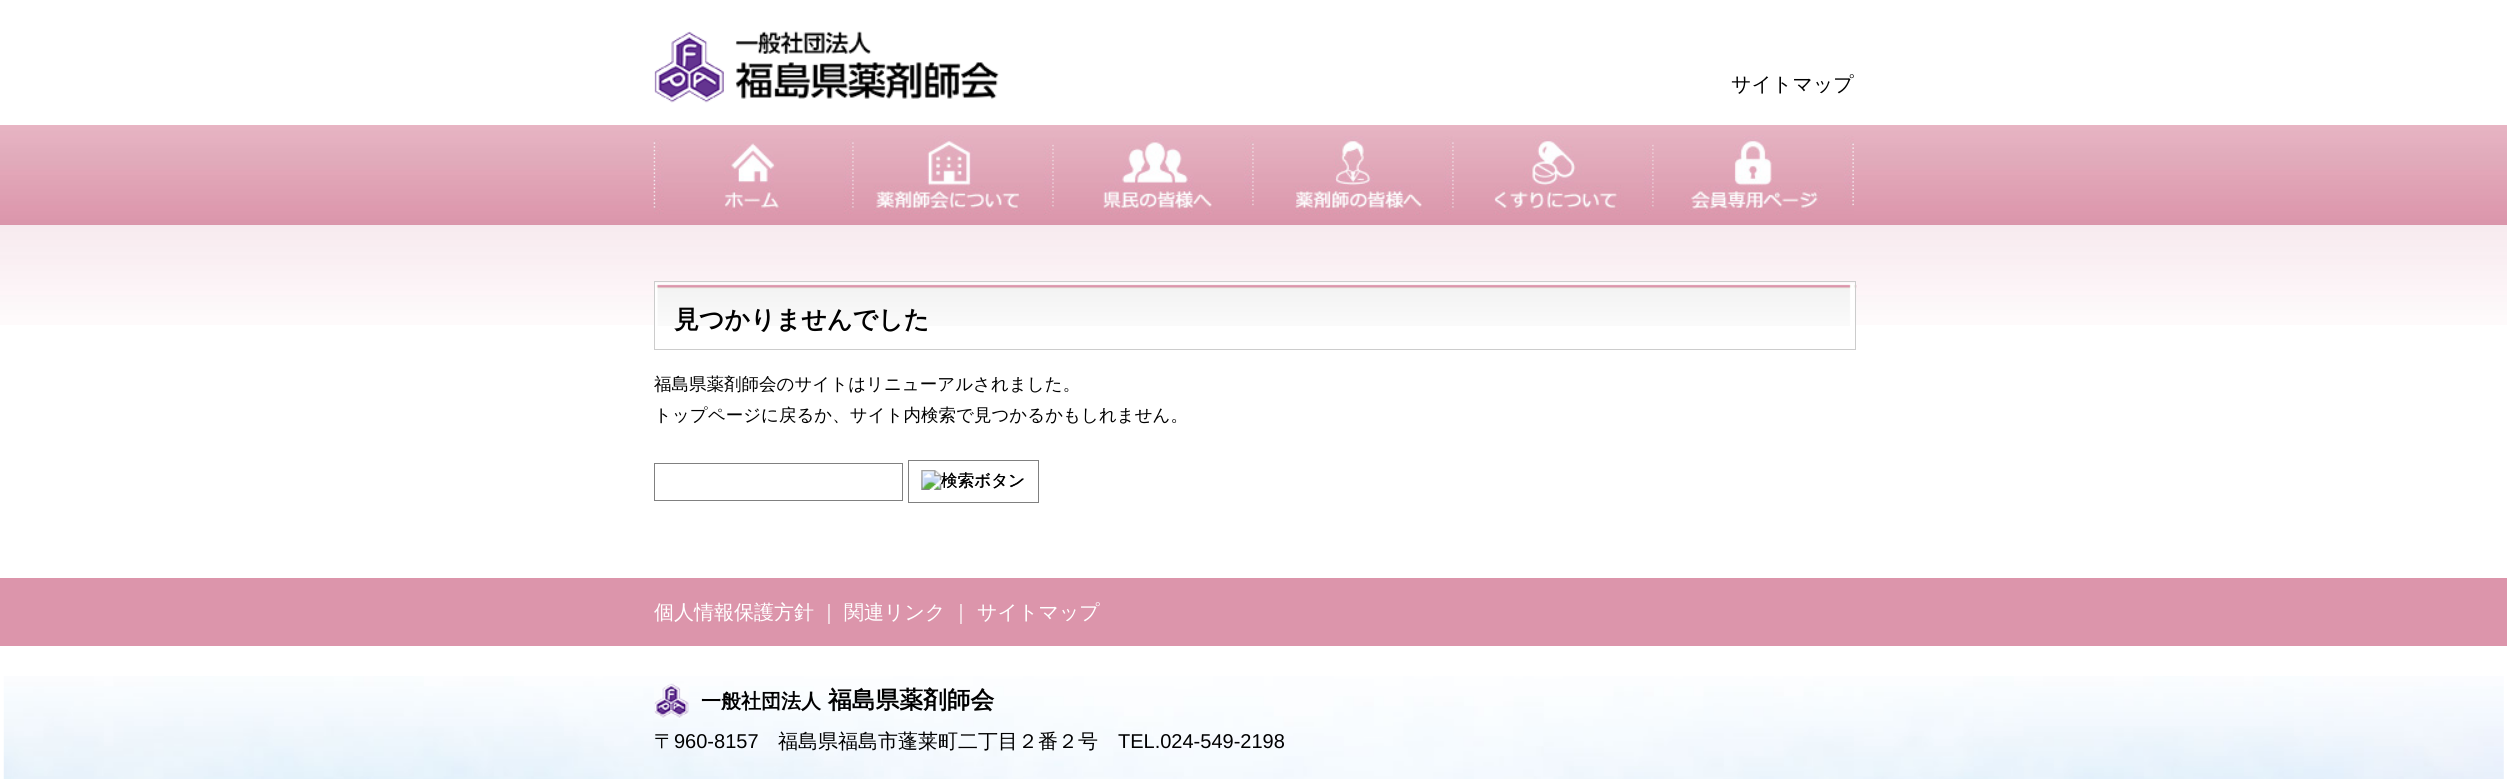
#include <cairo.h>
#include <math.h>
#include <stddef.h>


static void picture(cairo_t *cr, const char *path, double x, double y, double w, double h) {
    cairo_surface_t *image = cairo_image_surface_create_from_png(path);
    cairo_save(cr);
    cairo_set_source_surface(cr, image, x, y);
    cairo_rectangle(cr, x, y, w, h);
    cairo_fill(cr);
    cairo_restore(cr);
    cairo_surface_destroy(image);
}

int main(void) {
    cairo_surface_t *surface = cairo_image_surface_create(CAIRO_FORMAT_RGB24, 2507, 779);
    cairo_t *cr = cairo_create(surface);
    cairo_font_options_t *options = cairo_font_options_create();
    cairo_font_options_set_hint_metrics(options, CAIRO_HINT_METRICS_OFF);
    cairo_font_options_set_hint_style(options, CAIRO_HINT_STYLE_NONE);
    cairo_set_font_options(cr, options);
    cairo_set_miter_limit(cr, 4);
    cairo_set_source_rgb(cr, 1, 1, 1);
    cairo_paint(cr);
    picture(cr, "img1.png", 654, 31, 345, 72);
    cairo_select_font_face(cr, "WenQuanYi Zen Hei Medium", CAIRO_FONT_SLANT_NORMAL, CAIRO_FONT_WEIGHT_NORMAL);
    cairo_set_font_size(cr, 20);
    cairo_set_source_rgb(cr, 0, 0, 0);
    cairo_move_to(cr, 1731, 91);
    cairo_show_text(cr, "サイトマップ");
    picture(cr, "img2.png", 0, 125, 2507, 100);
    picture(cr, "img3.png", 653, 139, 201, 76);
    picture(cr, "img4.png", 853, 142, 1, 66);
    picture(cr, "img5.png", 853, 135, 201, 80);
    picture(cr, "img6.png", 1053, 145, 1, 62);
    picture(cr, "img7.png", 1053, 135, 201, 80);
    picture(cr, "img8.png", 1253, 143, 1, 62);
    picture(cr, "img9.png", 1253, 136, 201, 79);
    picture(cr, "img4.png", 1453, 142, 1, 66);
    picture(cr, "img10.png", 1453, 135, 201, 80);
    picture(cr, "img6.png", 1653, 145, 1, 62);
    picture(cr, "img11.png", 1653, 145, 1, 62);
    picture(cr, "img12.png", 1653, 135, 201, 80);
    picture(cr, "img13.png", 0, 225, 2507, 100);
    picture(cr, "img14.png", 655, 282, 1202, 44);
    cairo_rectangle(cr, 654.5, 281.5, 1201, 68);
    cairo_set_source_rgb(cr, 0.8, 0.8, 0.8);
    cairo_set_line_width(cr, 1);
    cairo_stroke(cr);
    cairo_select_font_face(cr, "WenQuanYi Zen Hei", CAIRO_FONT_SLANT_NORMAL, CAIRO_FONT_WEIGHT_BOLD);
    cairo_set_font_size(cr, 25);
    cairo_set_source_rgb(cr, 0, 0, 0);
    cairo_move_to(cr, 674, 328);
    cairo_show_text(cr, "見つかりませんでした");
    cairo_select_font_face(cr, "WenQuanYi Zen Hei Medium", CAIRO_FONT_SLANT_NORMAL, CAIRO_FONT_WEIGHT_NORMAL);
    cairo_set_font_size(cr, 17.5);
    cairo_move_to(cr, 654, 390);
    cairo_show_text(cr, "福島県薬剤師会のサイトはリニューアルされました。");
    cairo_move_to(cr, 654, 421);
    cairo_show_text(cr, "トップページに戻るか、サイト内検索で見つかるかもしれません。");
    cairo_rectangle(cr, 654.5, 463.5, 248, 37);
    cairo_set_source_rgb(cr, 0.502, 0.502, 0.502);
    cairo_stroke(cr);
    cairo_rectangle(cr, 908.5, 460.5, 130, 42);
    cairo_stroke(cr);
    picture(cr, "img15.png", 921, 470, 103, 20);
    cairo_set_font_size(cr, 16.5);
    cairo_set_source_rgb(cr, 0, 0, 0);
    cairo_move_to(cr, 941, 486);
    cairo_show_text(cr, "検索ボタン");
    cairo_set_source_rgb(cr, 0.863, 0.584, 0.671);
    cairo_rectangle(cr, 0, 578, 2507, 68);
    cairo_fill(cr);
    cairo_set_font_size(cr, 20);
    cairo_set_source_rgb(cr, 1, 1, 1);
    cairo_move_to(cr, 654, 619);
    cairo_show_text(cr, "個人情報保護方針");
    cairo_move_to(cr, 819, 619);
    cairo_show_text(cr, "｜");
    cairo_move_to(cr, 844, 619);
    cairo_show_text(cr, "関連リンク");
    cairo_move_to(cr, 951, 619);
    cairo_show_text(cr, "｜");
    cairo_move_to(cr, 977, 619);
    cairo_show_text(cr, "サイトマップ");
    picture(cr, "img16.png", 3, 676, 2501, 103);
    picture(cr, "img17.png", 654, 683, 35, 36);
    cairo_select_font_face(cr, "WenQuanYi Zen Hei", CAIRO_FONT_SLANT_NORMAL, CAIRO_FONT_WEIGHT_BOLD);
    cairo_set_source_rgb(cr, 0, 0, 0);
    cairo_move_to(cr, 701, 708);
    cairo_show_text(cr, "一般社団法人");
    cairo_set_font_size(cr, 23.75);
    cairo_move_to(cr, 828, 708);
    cairo_show_text(cr, "福島県薬剤師会");
    cairo_select_font_face(cr, "WenQuanYi Zen Hei Medium", CAIRO_FONT_SLANT_NORMAL, CAIRO_FONT_WEIGHT_NORMAL);
    cairo_set_font_size(cr, 20);
    cairo_move_to(cr, 654, 748);
    cairo_show_text(cr, "〒");
    cairo_select_font_face(cr, "Liberation Sans", CAIRO_FONT_SLANT_NORMAL, CAIRO_FONT_WEIGHT_NORMAL);
    cairo_move_to(cr, 674, 748);
    cairo_show_text(cr, "960-8157");
    cairo_select_font_face(cr, "WenQuanYi Zen Hei Medium", CAIRO_FONT_SLANT_NORMAL, CAIRO_FONT_WEIGHT_NORMAL);
    cairo_move_to(cr, 778, 748);
    cairo_show_text(cr, "福島県福島市蓬莱町二丁目２番２号");
    cairo_select_font_face(cr, "Liberation Sans", CAIRO_FONT_SLANT_NORMAL, CAIRO_FONT_WEIGHT_NORMAL);
    cairo_move_to(cr, 1118, 748);
    cairo_show_text(cr, "TEL.024-549-2198");
    cairo_surface_write_to_png(surface, "page.png");
    cairo_font_options_destroy(options);
    cairo_destroy(cr);
    cairo_surface_destroy(surface);
    return 0;
}
